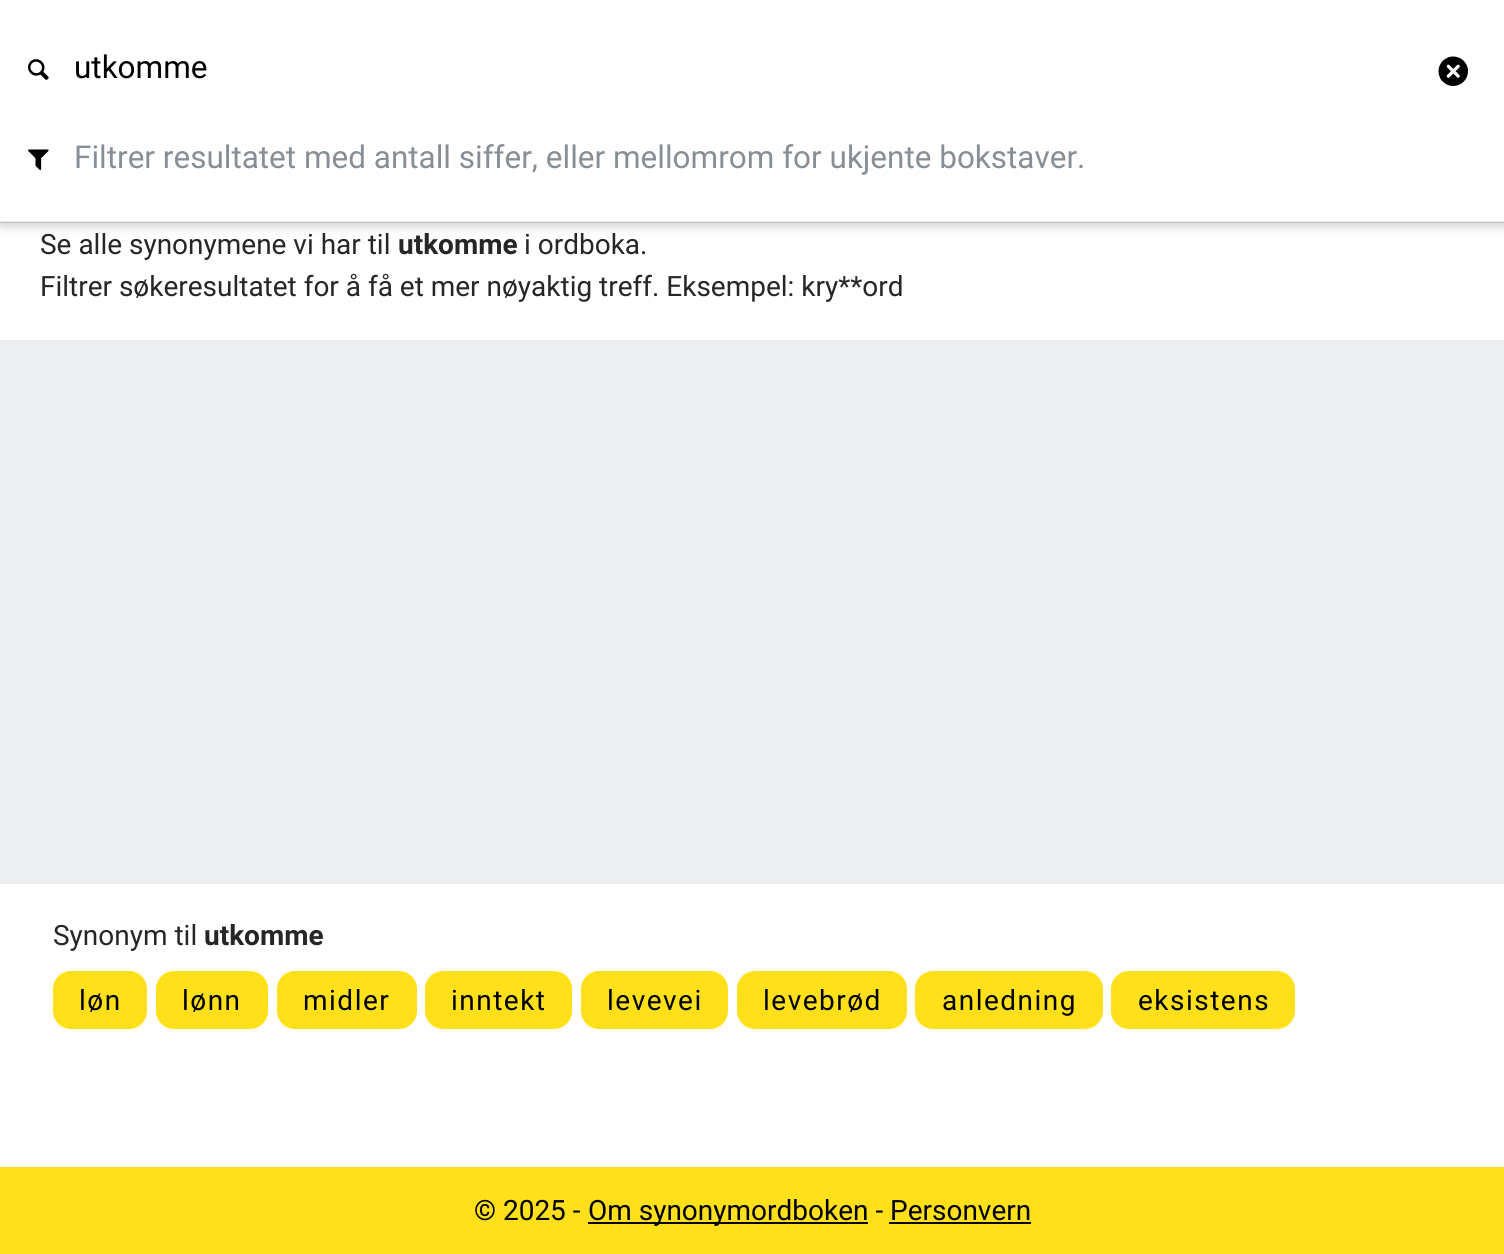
#include <cairo.h>
#include <math.h>
#include <stddef.h>


static void spaced_text(cairo_t *cr, double x, double y, const char *s, double letter, double word) {
    cairo_move_to(cr, x, y);
    while (*s) {
        char ch[5] = {0};
        int n = 0;
        do ch[n++] = *s++; while ((*s & 0xC0) == 0x80);
        cairo_show_text(cr, ch);
        cairo_rel_move_to(cr, letter + word * (*ch == ' '), 0);
    }
}

static void round_rect(cairo_t *cr, double x, double y, double w, double h, double r) {
    cairo_new_sub_path(cr);
    cairo_arc(cr, x + w - r, y + h - r, r, 0, M_PI / 2);
    cairo_arc(cr, x + r, y + h - r, r, M_PI / 2, M_PI);
    cairo_arc(cr, x + r, y + r, r, M_PI, 1.5 * M_PI);
    cairo_arc(cr, x + w - r, y + r, r, 1.5 * M_PI, 2 * M_PI);
    cairo_close_path(cr);
}

static void shadow(cairo_t *cr, double x, double y, double w, double h, double r, double blur, double alpha) {
    cairo_push_group_with_content(cr, CAIRO_CONTENT_ALPHA);
    cairo_set_operator(cr, CAIRO_OPERATOR_SOURCE);
    for (int i = 15; i >= -15 && fmin(w, h) + blur * i / 3 > 0; i -= 2) {
        double e = blur * i / 6;
        cairo_set_source_rgba(cr, 0, 0, 0, alpha * erfc((i - 1) / 8.5) / 2);
        round_rect(cr, x - e, y - e, w + 2 * e, h + 2 * e, fmax(0, fmin(r + e + blur * .6, fmin(w, h) / 2 + e)));
        cairo_fill(cr);
    }
    cairo_pattern_t *soft = cairo_pop_group(cr);
    cairo_mask(cr, soft);
    cairo_pattern_destroy(soft);
}

static void picture(cairo_t *cr, const char *path, double x, double y, double w, double h) {
    cairo_surface_t *image = cairo_image_surface_create_from_png(path);
    cairo_save(cr);
    cairo_set_source_surface(cr, image, x, y);
    cairo_rectangle(cr, x, y, w, h);
    cairo_fill(cr);
    cairo_restore(cr);
    cairo_surface_destroy(image);
}

int main(void) {
    cairo_surface_t *surface = cairo_image_surface_create(CAIRO_FORMAT_RGB24, 1504, 1254);
    cairo_t *cr = cairo_create(surface);
    cairo_font_options_t *options = cairo_font_options_create();
    cairo_font_options_set_hint_metrics(options, CAIRO_HINT_METRICS_OFF);
    cairo_font_options_set_hint_style(options, CAIRO_HINT_STYLE_NONE);
    cairo_set_font_options(cr, options);
    cairo_set_miter_limit(cr, 4);
    cairo_set_source_rgb(cr, 0.925, 0.933, 0.937);
    cairo_paint(cr);
    cairo_set_source_rgb(cr, 1, 1, 1);
    cairo_rectangle(cr, 0, 222, 1504, 118);
    cairo_fill(cr);
    cairo_set_source_rgb(cr, 0, 0, 0);
    shadow(cr, 0, 4, 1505, 222, 0, 5, 0.2);
    cairo_set_source_rgb(cr, 1, 1, 1);
    cairo_rectangle(cr, 0, 0, 1504, 222);
    cairo_fill(cr);
    cairo_set_source_rgba(cr, 0, 0, 0, 0.1);
    cairo_rectangle(cr, 0, 221, 1504, 2);
    cairo_fill(cr);
    picture(cr, "img1.png", 28, 59, 21, 21);
    cairo_select_font_face(cr, "Roboto", CAIRO_FONT_SLANT_NORMAL, CAIRO_FONT_WEIGHT_NORMAL);
    cairo_set_font_size(cr, 31.5);
    cairo_set_source_rgb(cr, 0, 0, 0);
    cairo_move_to(cr, 74, 78);
    cairo_show_text(cr, "utkomme");
    picture(cr, "img2.png", 1438, 56, 30, 30);
    picture(cr, "img3.png", 28, 149, 21, 22);
    cairo_set_source_rgb(cr, 0.525, 0.557, 0.588);
    cairo_move_to(cr, 74, 168);
    cairo_show_text(cr, "Filtrer resultatet med antall siffer, eller mellomrom for ukjente bokstaver.");
    cairo_set_font_size(cr, 28);
    cairo_set_source_rgb(cr, 0.149, 0.149, 0.153);
    cairo_move_to(cr, 40, 254);
    cairo_show_text(cr, "Se alle synonymene vi har til");
    cairo_select_font_face(cr, "Roboto", CAIRO_FONT_SLANT_NORMAL, CAIRO_FONT_WEIGHT_BOLD);
    cairo_move_to(cr, 398, 254);
    cairo_show_text(cr, "utkomme");
    cairo_select_font_face(cr, "Roboto", CAIRO_FONT_SLANT_NORMAL, CAIRO_FONT_WEIGHT_NORMAL);
    cairo_move_to(cr, 524, 254);
    cairo_show_text(cr, "i ordboka.");
    cairo_move_to(cr, 40, 296);
    cairo_show_text(cr, "Filtrer søkeresultatet for å få et mer nøyaktig treff. Eksempel: kry**ord");
    cairo_set_source_rgb(cr, 1, 1, 1);
    cairo_rectangle(cr, 0, 884, 1504, 283);
    cairo_fill(cr);
    cairo_set_source_rgb(cr, 0.149, 0.149, 0.153);
    cairo_move_to(cr, 53, 945);
    cairo_show_text(cr, "Synonym til");
    cairo_select_font_face(cr, "Roboto", CAIRO_FONT_SLANT_NORMAL, CAIRO_FONT_WEIGHT_BOLD);
    cairo_move_to(cr, 204, 945);
    cairo_show_text(cr, "utkomme");
    cairo_set_source_rgb(cr, 1, 0.878, 0.106);
    round_rect(cr, 53, 971, 94, 58, 18);
    cairo_fill(cr);
    cairo_select_font_face(cr, "Roboto", CAIRO_FONT_SLANT_NORMAL, CAIRO_FONT_WEIGHT_NORMAL);
    cairo_set_source_rgb(cr, 0, 0, 0);
    spaced_text(cr, 79, 1010, "løn", 1.5, 0);
    cairo_set_source_rgb(cr, 1, 0.878, 0.106);
    round_rect(cr, 156, 971, 112, 58, 18);
    cairo_fill(cr);
    cairo_set_source_rgb(cr, 0, 0, 0);
    spaced_text(cr, 182, 1010, "lønn", 1.5, 0);
    cairo_set_source_rgb(cr, 1, 0.878, 0.106);
    round_rect(cr, 277, 971, 140, 58, 18);
    cairo_fill(cr);
    cairo_set_source_rgb(cr, 0, 0, 0);
    spaced_text(cr, 303, 1010, "midler", 1.5, 0);
    cairo_set_source_rgb(cr, 1, 0.878, 0.106);
    round_rect(cr, 425, 971, 147, 58, 18);
    cairo_fill(cr);
    cairo_set_source_rgb(cr, 0, 0, 0);
    spaced_text(cr, 451, 1010, "inntekt", 1.5, 0);
    cairo_set_source_rgb(cr, 1, 0.878, 0.106);
    round_rect(cr, 581, 971, 147, 58, 18);
    cairo_fill(cr);
    cairo_set_source_rgb(cr, 0, 0, 0);
    spaced_text(cr, 607, 1010, "levevei", 1.5, 0);
    cairo_set_source_rgb(cr, 1, 0.878, 0.106);
    round_rect(cr, 737, 971, 170, 58, 18);
    cairo_fill(cr);
    cairo_set_source_rgb(cr, 0, 0, 0);
    spaced_text(cr, 763, 1010, "levebrød", 1.5, 0);
    cairo_set_source_rgb(cr, 1, 0.878, 0.106);
    round_rect(cr, 915, 971, 188, 58, 18);
    cairo_fill(cr);
    cairo_set_source_rgb(cr, 0, 0, 0);
    spaced_text(cr, 942, 1010, "anledning", 1.5, 0);
    cairo_set_source_rgb(cr, 1, 0.878, 0.106);
    round_rect(cr, 1111, 971, 184, 58, 18);
    cairo_fill(cr);
    cairo_set_source_rgb(cr, 0, 0, 0);
    spaced_text(cr, 1138, 1010, "eksistens", 1.5, 0);
    cairo_set_source_rgb(cr, 1, 0.878, 0.106);
    cairo_rectangle(cr, 0, 1167, 1504, 87);
    cairo_fill(cr);
    cairo_set_source_rgb(cr, 0, 0, 0);
    cairo_move_to(cr, 474, 1220);
    cairo_show_text(cr, "© 2025 -");
    cairo_rectangle(cr, 588, 1222, 280, 2);
    cairo_fill(cr);
    cairo_move_to(cr, 588, 1220);
    cairo_show_text(cr, "Om synonymordboken - Personvern");
    cairo_rectangle(cr, 889, 1222, 142, 2);
    cairo_fill(cr);
    cairo_surface_write_to_png(surface, "page.png");
    cairo_font_options_destroy(options);
    cairo_destroy(cr);
    cairo_surface_destroy(surface);
    return 0;
}
